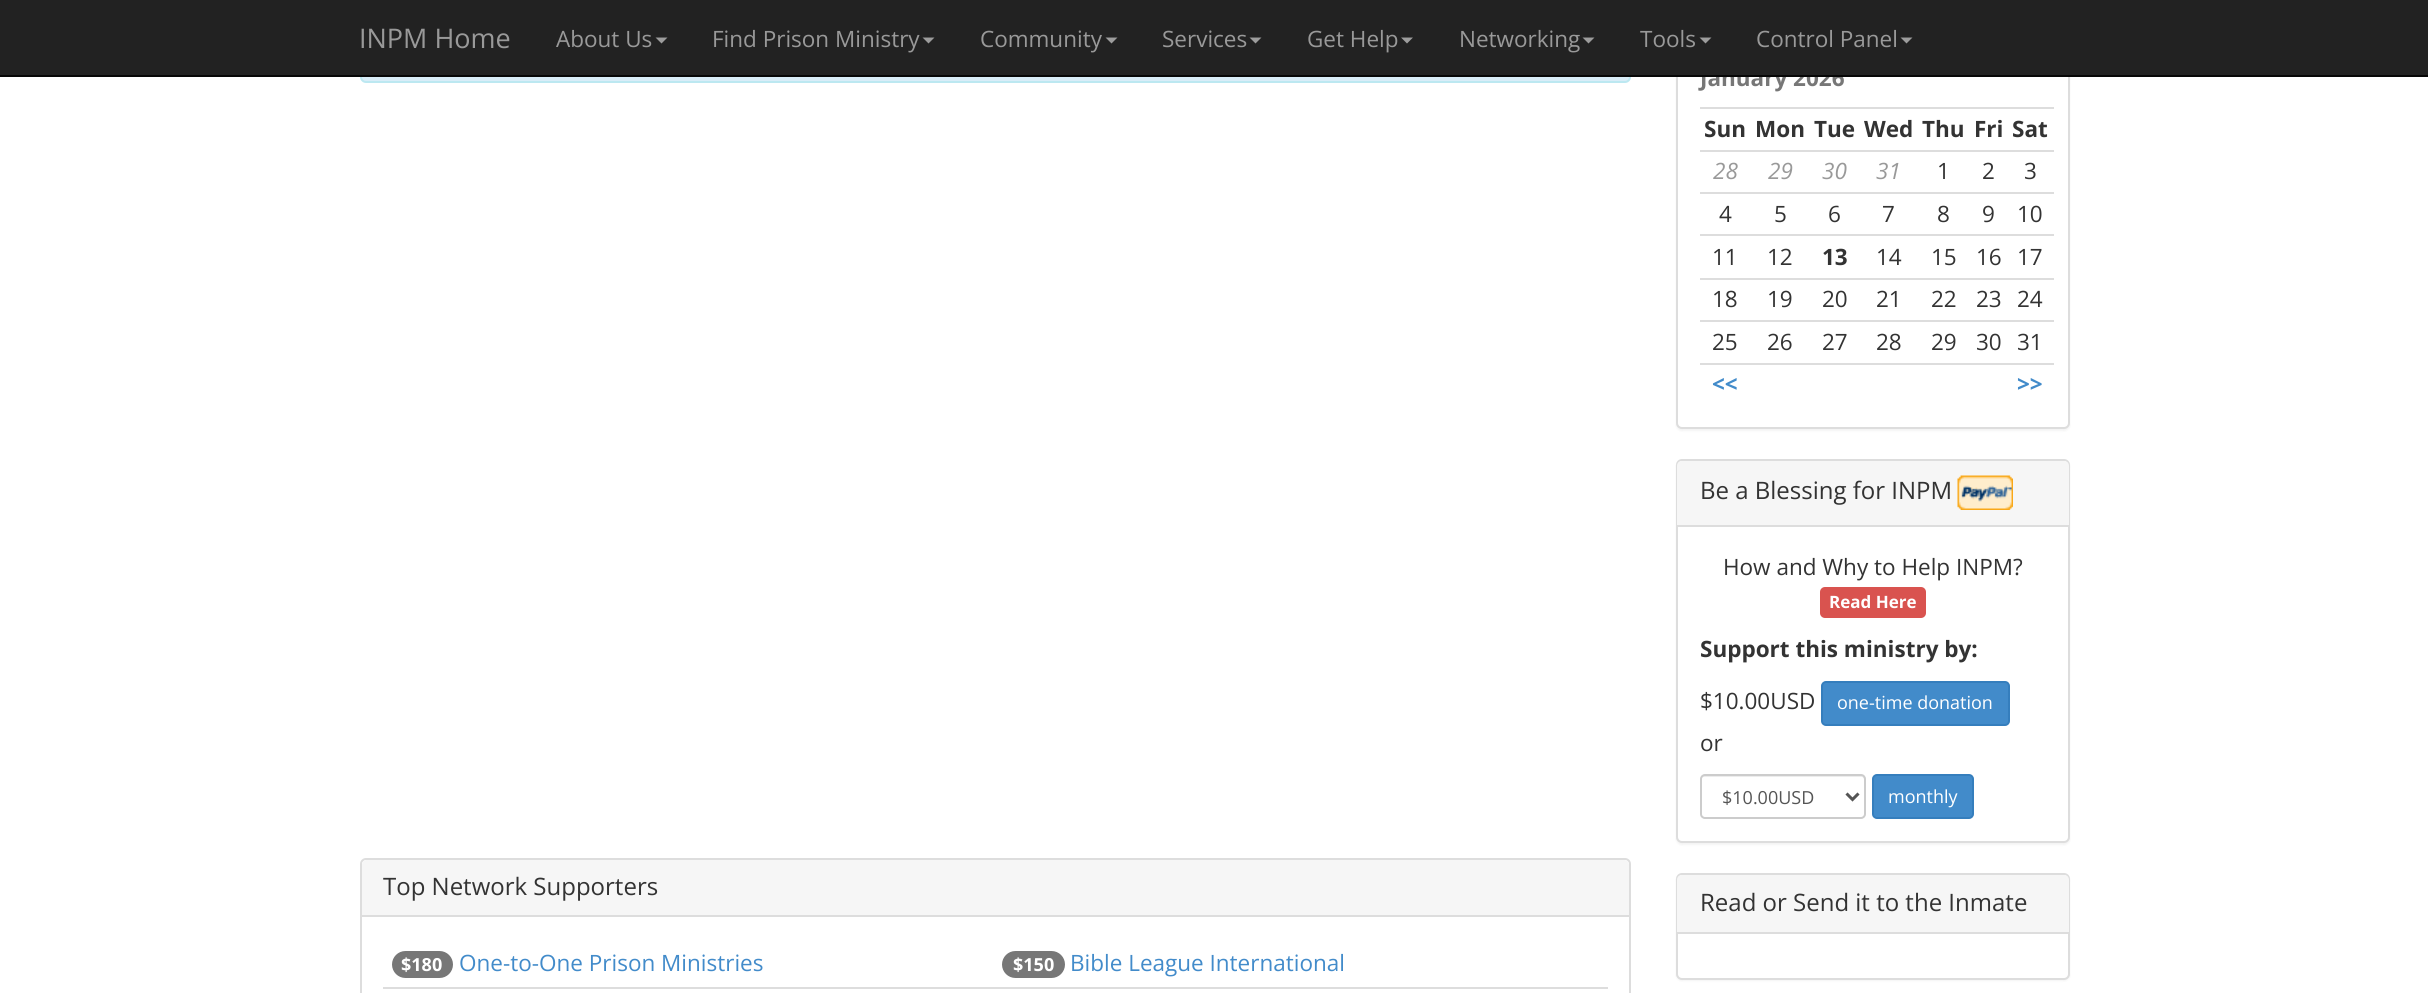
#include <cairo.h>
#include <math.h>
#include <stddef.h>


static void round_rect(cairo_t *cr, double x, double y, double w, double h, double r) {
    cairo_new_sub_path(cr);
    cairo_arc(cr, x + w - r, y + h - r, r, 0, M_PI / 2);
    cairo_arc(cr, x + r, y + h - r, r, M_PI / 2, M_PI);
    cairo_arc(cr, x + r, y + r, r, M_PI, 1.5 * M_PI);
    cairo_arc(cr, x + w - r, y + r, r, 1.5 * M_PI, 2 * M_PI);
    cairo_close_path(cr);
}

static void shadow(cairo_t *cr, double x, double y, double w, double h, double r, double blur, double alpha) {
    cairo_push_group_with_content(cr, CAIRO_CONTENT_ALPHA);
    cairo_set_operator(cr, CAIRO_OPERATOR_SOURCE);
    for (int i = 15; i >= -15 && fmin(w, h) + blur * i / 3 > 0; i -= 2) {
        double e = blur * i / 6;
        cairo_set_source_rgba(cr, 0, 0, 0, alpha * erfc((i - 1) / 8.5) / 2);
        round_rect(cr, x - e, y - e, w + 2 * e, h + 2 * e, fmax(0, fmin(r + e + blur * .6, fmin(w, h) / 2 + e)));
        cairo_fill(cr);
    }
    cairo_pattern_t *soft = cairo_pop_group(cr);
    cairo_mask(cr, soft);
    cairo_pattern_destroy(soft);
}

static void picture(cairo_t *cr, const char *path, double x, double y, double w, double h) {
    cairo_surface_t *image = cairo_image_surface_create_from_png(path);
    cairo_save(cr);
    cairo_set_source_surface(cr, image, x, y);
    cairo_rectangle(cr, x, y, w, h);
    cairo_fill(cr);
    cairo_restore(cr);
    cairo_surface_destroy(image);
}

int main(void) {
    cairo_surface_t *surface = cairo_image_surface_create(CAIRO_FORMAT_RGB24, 2428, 993);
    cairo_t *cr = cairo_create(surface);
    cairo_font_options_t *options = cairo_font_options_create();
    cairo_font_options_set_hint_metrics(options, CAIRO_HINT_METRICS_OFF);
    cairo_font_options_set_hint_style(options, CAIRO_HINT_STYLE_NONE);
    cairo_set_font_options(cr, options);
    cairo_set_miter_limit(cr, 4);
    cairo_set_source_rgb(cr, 1, 1, 1);
    cairo_paint(cr);
    cairo_set_source_rgb(cr, 0, 0, 0);
    shadow(cr, 1676, -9, 394, 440, 6, 1, 0.05);
    cairo_set_source_rgb(cr, 1, 1, 1);
    round_rect(cr, 1677, -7, 392, 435, 5);
    cairo_fill_preserve(cr);
    cairo_set_source_rgb(cr, 0.867, 0.867, 0.867);
    cairo_stroke(cr);
    cairo_select_font_face(cr, "Open Sans", CAIRO_FONT_SLANT_NORMAL, CAIRO_FONT_WEIGHT_BOLD);
    cairo_set_font_size(cr, 22.5);
    cairo_set_source_rgb(cr, 0.467, 0.467, 0.467);
    cairo_move_to(cr, 1700, 86);
    cairo_show_text(cr, "January 2026");
    cairo_set_source_rgb(cr, 0.851, 0.929, 0.969);
    round_rect(cr, 361, -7, 1269, 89, 5);
    cairo_fill_preserve(cr);
    cairo_set_source_rgb(cr, 0.737, 0.91, 0.945);
    cairo_stroke(cr);
    cairo_set_source_rgb(cr, 0.133, 0.133, 0.133);
    cairo_rectangle(cr, 0, 0, 2428, 75);
    cairo_fill(cr);
    cairo_set_source_rgb(cr, 0.031, 0.031, 0.031);
    cairo_rectangle(cr, 0, 75, 2428, 2);
    cairo_fill(cr);
    cairo_select_font_face(cr, "Open Sans", CAIRO_FONT_SLANT_NORMAL, CAIRO_FONT_WEIGHT_NORMAL);
    cairo_set_font_size(cr, 27);
    cairo_set_source_rgb(cr, 0.6, 0.6, 0.6);
    cairo_move_to(cr, 359, 48);
    cairo_show_text(cr, "INPM Home");
    cairo_set_font_size(cr, 22.5);
    cairo_move_to(cr, 556, 47);
    cairo_show_text(cr, "About Us");
    cairo_set_source_rgb(cr, 0.616, 0.616, 0.616);
    cairo_new_path(cr);
    cairo_move_to(cr, 655.5, 37.5);
    cairo_line_to(cr, 667.5, 37.5);
    cairo_line_to(cr, 661.5, 43.5);
    cairo_close_path(cr);
    cairo_fill(cr);
    cairo_set_source_rgb(cr, 0.6, 0.6, 0.6);
    cairo_move_to(cr, 712, 47);
    cairo_show_text(cr, "Find Prison Ministry");
    cairo_set_source_rgb(cr, 0.616, 0.616, 0.616);
    cairo_new_path(cr);
    cairo_move_to(cr, 922.5, 37.5);
    cairo_line_to(cr, 934.5, 37.5);
    cairo_line_to(cr, 928.5, 43.5);
    cairo_close_path(cr);
    cairo_fill(cr);
    cairo_set_source_rgb(cr, 0.6, 0.6, 0.6);
    cairo_move_to(cr, 980, 47);
    cairo_show_text(cr, "Community");
    cairo_set_source_rgb(cr, 0.616, 0.616, 0.616);
    cairo_new_path(cr);
    cairo_move_to(cr, 1105.5, 37.5);
    cairo_line_to(cr, 1117.5, 37.5);
    cairo_line_to(cr, 1111.5, 43.5);
    cairo_close_path(cr);
    cairo_fill(cr);
    cairo_set_source_rgb(cr, 0.6, 0.6, 0.6);
    cairo_move_to(cr, 1162, 47);
    cairo_show_text(cr, "Services");
    cairo_set_source_rgb(cr, 0.616, 0.616, 0.616);
    cairo_new_path(cr);
    cairo_move_to(cr, 1249.5, 37.5);
    cairo_line_to(cr, 1261.5, 37.5);
    cairo_line_to(cr, 1255.5, 43.5);
    cairo_close_path(cr);
    cairo_fill(cr);
    cairo_set_source_rgb(cr, 0.6, 0.6, 0.6);
    cairo_move_to(cr, 1307, 47);
    cairo_show_text(cr, "Get Help");
    cairo_set_source_rgb(cr, 0.616, 0.616, 0.616);
    cairo_new_path(cr);
    cairo_move_to(cr, 1401, 37.5);
    cairo_line_to(cr, 1413, 37.5);
    cairo_line_to(cr, 1407, 43.5);
    cairo_close_path(cr);
    cairo_fill(cr);
    cairo_set_source_rgb(cr, 0.6, 0.6, 0.6);
    cairo_move_to(cr, 1459, 47);
    cairo_show_text(cr, "Networking");
    cairo_set_source_rgb(cr, 0.616, 0.616, 0.616);
    cairo_new_path(cr);
    cairo_move_to(cr, 1582.5, 37.5);
    cairo_line_to(cr, 1594.5, 37.5);
    cairo_line_to(cr, 1588.5, 43.5);
    cairo_close_path(cr);
    cairo_fill(cr);
    cairo_set_source_rgb(cr, 0.6, 0.6, 0.6);
    cairo_move_to(cr, 1640, 47);
    cairo_show_text(cr, "Tools");
    cairo_set_source_rgb(cr, 0.616, 0.616, 0.616);
    cairo_new_path(cr);
    cairo_move_to(cr, 1699.5, 37.5);
    cairo_line_to(cr, 1711.5, 37.5);
    cairo_line_to(cr, 1705.5, 43.5);
    cairo_close_path(cr);
    cairo_fill(cr);
    cairo_set_source_rgb(cr, 0.6, 0.6, 0.6);
    cairo_move_to(cr, 1756, 47);
    cairo_show_text(cr, "Control Panel");
    cairo_set_source_rgb(cr, 0.616, 0.616, 0.616);
    cairo_new_path(cr);
    cairo_move_to(cr, 1900.5, 37.5);
    cairo_line_to(cr, 1912.5, 37.5);
    cairo_line_to(cr, 1906.5, 43.5);
    cairo_close_path(cr);
    cairo_fill(cr);
    cairo_select_font_face(cr, "Open Sans", CAIRO_FONT_SLANT_NORMAL, CAIRO_FONT_WEIGHT_BOLD);
    cairo_set_source_rgb(cr, 0.2, 0.2, 0.2);
    cairo_move_to(cr, 1704, 137);
    cairo_show_text(cr, "Sun");
    cairo_move_to(cr, 1755, 137);
    cairo_show_text(cr, "Mon");
    cairo_move_to(cr, 1814, 137);
    cairo_show_text(cr, "Tue");
    cairo_move_to(cr, 1864, 137);
    cairo_show_text(cr, "Wed");
    cairo_move_to(cr, 1922, 137);
    cairo_show_text(cr, "Thu");
    cairo_move_to(cr, 1974, 137);
    cairo_show_text(cr, "Fri");
    cairo_set_source_rgb(cr, 0.867, 0.867, 0.867);
    cairo_rectangle(cr, 1700, 107, 354, 2);
    cairo_fill(cr);
    cairo_set_source_rgb(cr, 0.2, 0.2, 0.2);
    cairo_move_to(cr, 2012, 137);
    cairo_show_text(cr, "Sat");
    cairo_select_font_face(cr, "Open Sans", CAIRO_FONT_SLANT_ITALIC, CAIRO_FONT_WEIGHT_NORMAL);
    cairo_set_source_rgb(cr, 0.6, 0.6, 0.6);
    cairo_move_to(cr, 1713, 179);
    cairo_show_text(cr, "28");
    cairo_move_to(cr, 1768, 179);
    cairo_show_text(cr, "29");
    cairo_move_to(cr, 1822, 179);
    cairo_show_text(cr, "30");
    cairo_move_to(cr, 1876, 179);
    cairo_show_text(cr, "31");
    cairo_select_font_face(cr, "Open Sans", CAIRO_FONT_SLANT_NORMAL, CAIRO_FONT_WEIGHT_NORMAL);
    cairo_set_source_rgb(cr, 0.2, 0.2, 0.2);
    cairo_move_to(cr, 1937, 179);
    cairo_show_text(cr, "1");
    cairo_move_to(cr, 1982, 179);
    cairo_show_text(cr, "2");
    cairo_set_source_rgb(cr, 0.867, 0.867, 0.867);
    cairo_rectangle(cr, 1700, 150, 354, 2);
    cairo_fill(cr);
    cairo_set_source_rgb(cr, 0.2, 0.2, 0.2);
    cairo_move_to(cr, 2024, 179);
    cairo_show_text(cr, "3");
    cairo_move_to(cr, 1719, 222);
    cairo_show_text(cr, "4");
    cairo_move_to(cr, 1774, 222);
    cairo_show_text(cr, "5");
    cairo_move_to(cr, 1828, 222);
    cairo_show_text(cr, "6");
    cairo_move_to(cr, 1882, 222);
    cairo_show_text(cr, "7");
    cairo_move_to(cr, 1937, 222);
    cairo_show_text(cr, "8");
    cairo_move_to(cr, 1982, 222);
    cairo_show_text(cr, "9");
    cairo_set_source_rgb(cr, 0.867, 0.867, 0.867);
    cairo_rectangle(cr, 1700, 192, 354, 2);
    cairo_fill(cr);
    cairo_set_source_rgb(cr, 0.2, 0.2, 0.2);
    cairo_move_to(cr, 2017, 222);
    cairo_show_text(cr, "10");
    cairo_move_to(cr, 1712, 265);
    cairo_show_text(cr, "11");
    cairo_move_to(cr, 1767, 265);
    cairo_show_text(cr, "12");
    cairo_select_font_face(cr, "Open Sans", CAIRO_FONT_SLANT_NORMAL, CAIRO_FONT_WEIGHT_BOLD);
    cairo_move_to(cr, 1822, 265);
    cairo_show_text(cr, "13");
    cairo_select_font_face(cr, "Open Sans", CAIRO_FONT_SLANT_NORMAL, CAIRO_FONT_WEIGHT_NORMAL);
    cairo_move_to(cr, 1876, 265);
    cairo_show_text(cr, "14");
    cairo_move_to(cr, 1931, 265);
    cairo_show_text(cr, "15");
    cairo_move_to(cr, 1976, 265);
    cairo_show_text(cr, "16");
    cairo_set_source_rgb(cr, 0.867, 0.867, 0.867);
    cairo_rectangle(cr, 1700, 234, 354, 2);
    cairo_fill(cr);
    cairo_set_source_rgb(cr, 0.2, 0.2, 0.2);
    cairo_move_to(cr, 2017, 265);
    cairo_show_text(cr, "17");
    cairo_move_to(cr, 1712, 307);
    cairo_show_text(cr, "18");
    cairo_move_to(cr, 1767, 307);
    cairo_show_text(cr, "19");
    cairo_move_to(cr, 1822, 307);
    cairo_show_text(cr, "20");
    cairo_move_to(cr, 1876, 307);
    cairo_show_text(cr, "21");
    cairo_move_to(cr, 1931, 307);
    cairo_show_text(cr, "22");
    cairo_move_to(cr, 1976, 307);
    cairo_show_text(cr, "23");
    cairo_set_source_rgb(cr, 0.867, 0.867, 0.867);
    cairo_rectangle(cr, 1700, 278, 354, 2);
    cairo_fill(cr);
    cairo_set_source_rgb(cr, 0.2, 0.2, 0.2);
    cairo_move_to(cr, 2017, 307);
    cairo_show_text(cr, "24");
    cairo_move_to(cr, 1712, 350);
    cairo_show_text(cr, "25");
    cairo_move_to(cr, 1767, 350);
    cairo_show_text(cr, "26");
    cairo_move_to(cr, 1822, 350);
    cairo_show_text(cr, "27");
    cairo_move_to(cr, 1876, 350);
    cairo_show_text(cr, "28");
    cairo_move_to(cr, 1931, 350);
    cairo_show_text(cr, "29");
    cairo_move_to(cr, 1976, 350);
    cairo_show_text(cr, "30");
    cairo_set_source_rgb(cr, 0.867, 0.867, 0.867);
    cairo_rectangle(cr, 1700, 320, 354, 2);
    cairo_fill(cr);
    cairo_set_source_rgb(cr, 0.2, 0.2, 0.2);
    cairo_move_to(cr, 2017, 350);
    cairo_show_text(cr, "31");
    cairo_select_font_face(cr, "Open Sans", CAIRO_FONT_SLANT_NORMAL, CAIRO_FONT_WEIGHT_BOLD);
    cairo_set_source_rgb(cr, 0.259, 0.545, 0.792);
    cairo_move_to(cr, 1712, 392);
    cairo_show_text(cr, "<<");
    cairo_set_source_rgb(cr, 0.867, 0.867, 0.867);
    cairo_rectangle(cr, 1700, 363, 354, 2);
    cairo_fill(cr);
    cairo_set_source_rgb(cr, 0.259, 0.545, 0.792);
    cairo_move_to(cr, 2017, 392);
    cairo_show_text(cr, ">>");
    cairo_set_source_rgb(cr, 0, 0, 0);
    shadow(cr, 1676, 461, 394, 384, 6, 1, 0.05);
    cairo_set_source_rgb(cr, 1, 1, 1);
    round_rect(cr, 1677, 460, 392, 382, 5);
    cairo_fill_preserve(cr);
    cairo_set_source_rgb(cr, 0.867, 0.867, 0.867);
    cairo_stroke(cr);
    cairo_set_source_rgb(cr, 0.961, 0.961, 0.961);
    cairo_new_path(cr);
    cairo_move_to(cr, 1682, 461);
    cairo_line_to(cr, 2064, 461);
    cairo_curve_to(cr, 2067, 461, 2069, 463, 2069, 466);
    cairo_line_to(cr, 2069, 527);
    cairo_line_to(cr, 1677, 527);
    cairo_line_to(cr, 1677, 466);
    cairo_curve_to(cr, 1677, 463, 1679, 461, 1682, 461);
    cairo_close_path(cr);
    cairo_fill(cr);
    cairo_set_source_rgb(cr, 0.867, 0.867, 0.867);
    cairo_rectangle(cr, 1677, 525, 392, 2);
    cairo_fill(cr);
    cairo_select_font_face(cr, "Open Sans", CAIRO_FONT_SLANT_NORMAL, CAIRO_FONT_WEIGHT_NORMAL);
    cairo_set_font_size(cr, 24);
    cairo_set_source_rgb(cr, 0.2, 0.2, 0.2);
    cairo_move_to(cr, 1700, 499);
    cairo_show_text(cr, "Be a Blessing for INPM");
    picture(cr, "img1.png", 1957, 475, 56, 35);
    cairo_set_font_size(cr, 22.5);
    cairo_move_to(cr, 1723, 575);
    cairo_show_text(cr, "How and Why to Help INPM?");
    cairo_set_source_rgb(cr, 0.851, 0.325, 0.31);
    round_rect(cr, 1820, 587, 106, 31, 5);
    cairo_fill(cr);
    cairo_select_font_face(cr, "Open Sans", CAIRO_FONT_SLANT_NORMAL, CAIRO_FONT_WEIGHT_BOLD);
    cairo_set_font_size(cr, 17);
    cairo_set_source_rgb(cr, 1, 1, 1);
    cairo_move_to(cr, 1829, 608);
    cairo_show_text(cr, "Read Here");
    cairo_set_font_size(cr, 22.5);
    cairo_set_source_rgb(cr, 0.2, 0.2, 0.2);
    cairo_move_to(cr, 1700, 657);
    cairo_show_text(cr, "Support this ministry by:");
    cairo_select_font_face(cr, "Open Sans", CAIRO_FONT_SLANT_NORMAL, CAIRO_FONT_WEIGHT_NORMAL);
    cairo_move_to(cr, 1700, 709);
    cairo_show_text(cr, "$10.00USD");
    cairo_set_source_rgb(cr, 0.259, 0.545, 0.792);
    round_rect(cr, 1822, 682, 187, 43, 4);
    cairo_fill_preserve(cr);
    cairo_set_source_rgb(cr, 0.208, 0.494, 0.741);
    cairo_stroke(cr);
    cairo_set_font_size(cr, 18);
    cairo_set_source_rgb(cr, 1, 1, 1);
    cairo_move_to(cr, 1837, 709);
    cairo_show_text(cr, "one-time donation");
    cairo_set_font_size(cr, 22.5);
    cairo_set_source_rgb(cr, 0.2, 0.2, 0.2);
    cairo_move_to(cr, 1700, 751);
    cairo_show_text(cr, "or");
    cairo_set_source_rgb(cr, 0.925, 0.925, 0.925);
    cairo_new_path(cr);
    cairo_move_to(cr, 1704, 777);
    cairo_line_to(cr, 1862, 777);
    cairo_curve_to(cr, 1863, 777, 1864, 778, 1864, 780);
    cairo_line_to(cr, 1864, 817);
    cairo_curve_to(cr, 1865, 817, 1865, 816, 1865, 815);
    cairo_line_to(cr, 1865, 779);
    cairo_curve_to(cr, 1865, 777, 1864, 776, 1862, 776);
    cairo_line_to(cr, 1704, 776);
    cairo_curve_to(cr, 1702, 776, 1701, 777, 1701, 779);
    cairo_line_to(cr, 1701, 780);
    cairo_curve_to(cr, 1701, 778, 1702, 777, 1704, 777);
    cairo_close_path(cr);
    cairo_fill(cr);
    round_rect(cr, 1701, 775, 164, 43, 4);
    cairo_set_source_rgb(cr, 0.8, 0.8, 0.8);
    cairo_stroke(cr);
    cairo_new_path(cr);
    cairo_move_to(cr, 1846.5, 793.5);
    cairo_line_to(cr, 1852.5, 799.5);
    cairo_line_to(cr, 1858.5, 793.5);
    cairo_set_source_rgb(cr, 0.333, 0.333, 0.333);
    cairo_set_line_width(cr, 3);
    cairo_stroke(cr);
    cairo_set_font_size(cr, 18);
    cairo_move_to(cr, 1722, 804);
    cairo_show_text(cr, "$10.00USD");
    cairo_set_source_rgb(cr, 0.259, 0.545, 0.792);
    round_rect(cr, 1873, 775, 100, 43, 4);
    cairo_fill_preserve(cr);
    cairo_set_source_rgb(cr, 0.208, 0.494, 0.741);
    cairo_set_line_width(cr, 2);
    cairo_stroke(cr);
    cairo_set_source_rgb(cr, 1, 1, 1);
    cairo_move_to(cr, 1888, 803);
    cairo_show_text(cr, "monthly");
    cairo_set_source_rgb(cr, 0, 0, 0);
    shadow(cr, 1676, 875, 394, 106, 6, 1, 0.05);
    cairo_set_source_rgb(cr, 1, 1, 1);
    round_rect(cr, 1677, 874, 392, 105, 5);
    cairo_fill_preserve(cr);
    cairo_set_source_rgb(cr, 0.867, 0.867, 0.867);
    cairo_stroke(cr);
    cairo_set_source_rgb(cr, 0.961, 0.961, 0.961);
    cairo_new_path(cr);
    cairo_move_to(cr, 1682, 875);
    cairo_line_to(cr, 2064, 875);
    cairo_curve_to(cr, 2067, 875, 2069, 877, 2069, 880);
    cairo_line_to(cr, 2069, 933);
    cairo_line_to(cr, 1677, 933);
    cairo_line_to(cr, 1677, 880);
    cairo_curve_to(cr, 1677, 877, 1679, 875, 1682, 875);
    cairo_close_path(cr);
    cairo_fill(cr);
    cairo_set_source_rgb(cr, 0.867, 0.867, 0.867);
    cairo_rectangle(cr, 1677, 932, 392, 2);
    cairo_fill(cr);
    cairo_set_font_size(cr, 24);
    cairo_set_source_rgb(cr, 0.2, 0.2, 0.2);
    cairo_move_to(cr, 1700, 911);
    cairo_show_text(cr, "Read or Send it to the Inmate");
    round_rect(cr, 361, 859, 1269, 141, 5);
    cairo_set_source_rgb(cr, 0.867, 0.867, 0.867);
    cairo_stroke(cr);
    cairo_set_source_rgb(cr, 0.961, 0.961, 0.961);
    cairo_new_path(cr);
    cairo_move_to(cr, 367, 860);
    cairo_line_to(cr, 1624, 860);
    cairo_curve_to(cr, 1627, 860, 1629, 862, 1629, 865);
    cairo_line_to(cr, 1629, 917);
    cairo_line_to(cr, 362, 917);
    cairo_line_to(cr, 362, 865);
    cairo_curve_to(cr, 362, 862, 364, 860, 367, 860);
    cairo_close_path(cr);
    cairo_fill(cr);
    cairo_set_source_rgb(cr, 0.867, 0.867, 0.867);
    cairo_rectangle(cr, 362, 915, 1267, 2);
    cairo_fill(cr);
    cairo_set_source_rgb(cr, 0.2, 0.2, 0.2);
    cairo_move_to(cr, 383, 895);
    cairo_show_text(cr, "Top Network Supporters");
    cairo_set_source_rgb(cr, 0.467, 0.467, 0.467);
    round_rect(cr, 392, 951, 61, 27, 13.5);
    cairo_fill(cr);
    cairo_select_font_face(cr, "Open Sans", CAIRO_FONT_SLANT_NORMAL, CAIRO_FONT_WEIGHT_BOLD);
    cairo_set_font_size(cr, 18);
    cairo_set_source_rgb(cr, 1, 1, 1);
    cairo_move_to(cr, 401, 971);
    cairo_show_text(cr, "$180");
    cairo_select_font_face(cr, "Open Sans", CAIRO_FONT_SLANT_NORMAL, CAIRO_FONT_WEIGHT_NORMAL);
    cairo_set_font_size(cr, 22.5);
    cairo_set_source_rgb(cr, 0.259, 0.545, 0.792);
    cairo_move_to(cr, 459, 971);
    cairo_show_text(cr, "One-to-One Prison Ministries");
    cairo_set_source_rgb(cr, 0.467, 0.467, 0.467);
    round_rect(cr, 1002, 951, 63, 27, 13.5);
    cairo_fill(cr);
    cairo_select_font_face(cr, "Open Sans", CAIRO_FONT_SLANT_NORMAL, CAIRO_FONT_WEIGHT_BOLD);
    cairo_set_font_size(cr, 18);
    cairo_set_source_rgb(cr, 1, 1, 1);
    cairo_move_to(cr, 1013, 971);
    cairo_show_text(cr, "$150");
    cairo_select_font_face(cr, "Open Sans", CAIRO_FONT_SLANT_NORMAL, CAIRO_FONT_WEIGHT_NORMAL);
    cairo_set_font_size(cr, 22.5);
    cairo_set_source_rgb(cr, 0.259, 0.545, 0.792);
    cairo_move_to(cr, 1070, 971);
    cairo_show_text(cr, "Bible League International");
    cairo_set_source_rgb(cr, 0.867, 0.867, 0.867);
    cairo_rectangle(cr, 383, 987, 1225, 2);
    cairo_fill(cr);
    cairo_surface_write_to_png(surface, "page.png");
    cairo_font_options_destroy(options);
    cairo_destroy(cr);
    cairo_surface_destroy(surface);
    return 0;
}
